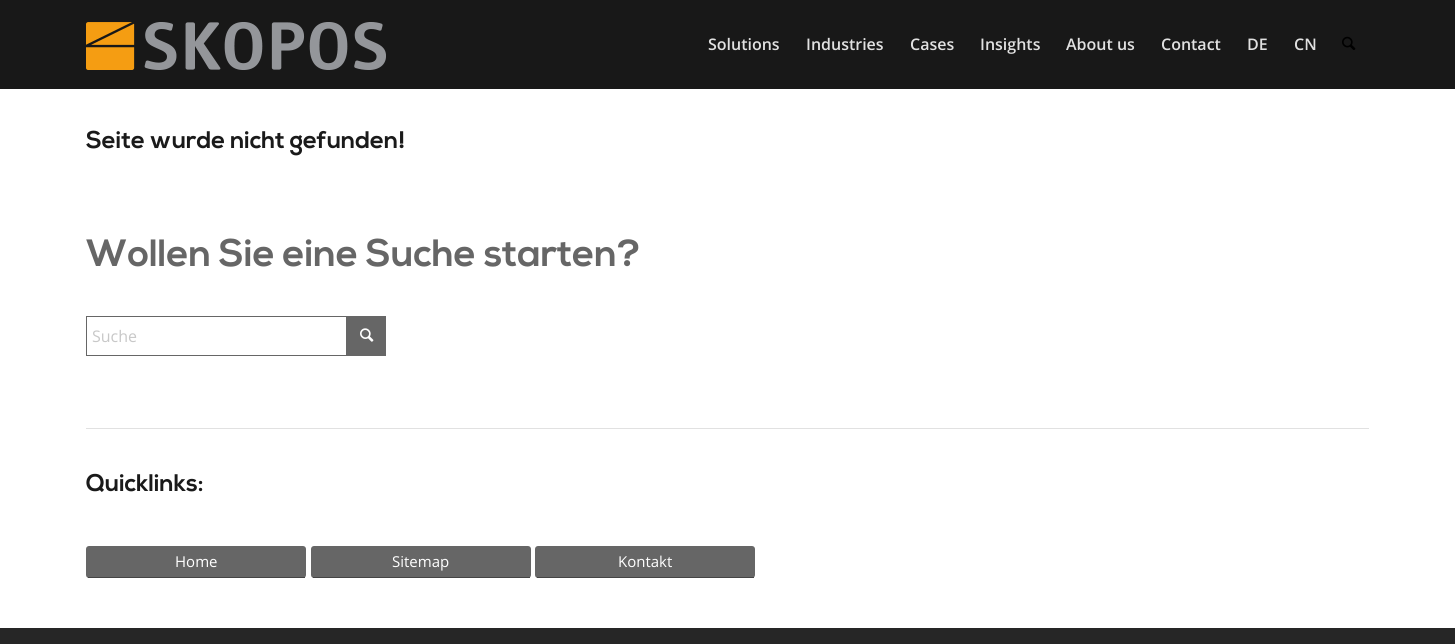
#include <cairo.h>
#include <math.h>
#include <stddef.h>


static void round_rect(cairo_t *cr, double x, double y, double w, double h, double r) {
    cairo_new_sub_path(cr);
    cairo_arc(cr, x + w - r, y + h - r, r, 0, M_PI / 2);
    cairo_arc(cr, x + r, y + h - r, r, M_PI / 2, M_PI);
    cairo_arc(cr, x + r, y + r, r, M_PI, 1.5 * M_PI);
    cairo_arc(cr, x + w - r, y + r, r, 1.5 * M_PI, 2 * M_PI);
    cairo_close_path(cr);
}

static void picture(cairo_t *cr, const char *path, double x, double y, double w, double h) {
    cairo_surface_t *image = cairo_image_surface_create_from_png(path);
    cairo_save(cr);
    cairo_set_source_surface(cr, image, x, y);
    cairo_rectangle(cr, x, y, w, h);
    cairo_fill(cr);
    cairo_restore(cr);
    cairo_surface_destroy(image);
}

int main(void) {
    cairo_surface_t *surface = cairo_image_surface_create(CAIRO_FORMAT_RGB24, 1455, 644);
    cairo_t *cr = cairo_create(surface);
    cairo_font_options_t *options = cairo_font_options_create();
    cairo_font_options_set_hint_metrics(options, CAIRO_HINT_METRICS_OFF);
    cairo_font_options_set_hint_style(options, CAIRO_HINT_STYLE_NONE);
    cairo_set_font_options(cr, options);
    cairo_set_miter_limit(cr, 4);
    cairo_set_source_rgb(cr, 0.094, 0.094, 0.094);
    cairo_paint(cr);
    picture(cr, "img1.png", 86, 22, 300, 48);
    cairo_select_font_face(cr, "Open Sans SemiBold", CAIRO_FONT_SLANT_NORMAL, CAIRO_FONT_WEIGHT_NORMAL);
    cairo_set_font_size(cr, 16);
    cairo_set_source_rgb(cr, 0.882, 0.882, 0.882);
    cairo_move_to(cr, 708, 50);
    cairo_show_text(cr, "Solutions");
    cairo_move_to(cr, 806, 50);
    cairo_show_text(cr, "Industries");
    cairo_move_to(cr, 910, 50);
    cairo_show_text(cr, "Cases");
    cairo_move_to(cr, 980, 50);
    cairo_show_text(cr, "Insights");
    cairo_move_to(cr, 1066, 50);
    cairo_show_text(cr, "About us");
    cairo_move_to(cr, 1161, 50);
    cairo_show_text(cr, "Contact");
    cairo_move_to(cr, 1247, 50);
    cairo_show_text(cr, "DE");
    cairo_move_to(cr, 1294, 50);
    cairo_show_text(cr, "CN");
    picture(cr, "img2.png", 1342, 36, 14, 14);
    cairo_set_source_rgb(cr, 1, 1, 1);
    cairo_rectangle(cr, 0, 89, 1455, 539);
    cairo_fill(cr);
    cairo_select_font_face(cr, "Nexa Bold", CAIRO_FONT_SLANT_NORMAL, CAIRO_FONT_WEIGHT_BOLD);
    cairo_set_font_size(cr, 24);
    cairo_set_source_rgb(cr, 0.102, 0.102, 0.102);
    cairo_move_to(cr, 86, 148);
    cairo_show_text(cr, "Seite wurde nicht gefunden!");
    cairo_set_font_size(cr, 38);
    cairo_set_source_rgb(cr, 0.4, 0.4, 0.4);
    cairo_move_to(cr, 86, 266);
    cairo_show_text(cr, "Wollen Sie eine Suche starten?");
    cairo_rectangle(cr, 86.5, 316.5, 299, 39);
    cairo_set_line_width(cr, 1);
    cairo_stroke(cr);
    cairo_select_font_face(cr, "Open Sans", CAIRO_FONT_SLANT_NORMAL, CAIRO_FONT_WEIGHT_NORMAL);
    cairo_set_font_size(cr, 16);
    cairo_set_source_rgb(cr, 0.784, 0.784, 0.784);
    cairo_move_to(cr, 92, 342);
    cairo_show_text(cr, "Suche");
    cairo_set_source_rgb(cr, 0.4, 0.4, 0.4);
    cairo_rectangle(cr, 346, 317, 39, 38);
    cairo_fill(cr);
    picture(cr, "img3.png", 360, 328, 14, 14);
    cairo_set_source_rgb(cr, 0.882, 0.882, 0.882);
    cairo_rectangle(cr, 86, 428, 1283, 1);
    cairo_fill(cr);
    cairo_select_font_face(cr, "Nexa Bold", CAIRO_FONT_SLANT_NORMAL, CAIRO_FONT_WEIGHT_BOLD);
    cairo_set_font_size(cr, 24);
    cairo_set_source_rgb(cr, 0.102, 0.102, 0.102);
    cairo_move_to(cr, 86, 491);
    cairo_show_text(cr, "Quicklinks:");
    cairo_set_source_rgb(cr, 0.4, 0.4, 0.4);
    round_rect(cr, 86, 546, 220, 32, 3);
    cairo_fill(cr);
    cairo_set_source_rgb(cr, 0.267, 0.267, 0.267);
    cairo_rectangle(cr, 88, 577, 217, 1);
    cairo_fill(cr);
    cairo_select_font_face(cr, "Open Sans", CAIRO_FONT_SLANT_NORMAL, CAIRO_FONT_WEIGHT_NORMAL);
    cairo_set_font_size(cr, 15);
    cairo_set_source_rgb(cr, 1, 1, 1);
    cairo_move_to(cr, 175, 567);
    cairo_show_text(cr, "Home");
    cairo_set_source_rgb(cr, 0.4, 0.4, 0.4);
    round_rect(cr, 311, 546, 220, 32, 3);
    cairo_fill(cr);
    cairo_set_source_rgb(cr, 0.267, 0.267, 0.267);
    cairo_rectangle(cr, 313, 577, 217, 1);
    cairo_fill(cr);
    cairo_set_source_rgb(cr, 1, 1, 1);
    cairo_move_to(cr, 392, 567);
    cairo_show_text(cr, "Sitemap");
    cairo_set_source_rgb(cr, 0.4, 0.4, 0.4);
    round_rect(cr, 535, 546, 220, 32, 3);
    cairo_fill(cr);
    cairo_set_source_rgb(cr, 0.267, 0.267, 0.267);
    cairo_rectangle(cr, 537, 577, 217, 1);
    cairo_fill(cr);
    cairo_set_source_rgb(cr, 1, 1, 1);
    cairo_move_to(cr, 618, 567);
    cairo_show_text(cr, "Kontakt");
    cairo_set_source_rgb(cr, 0.149, 0.149, 0.149);
    cairo_rectangle(cr, 0, 628, 1455, 16);
    cairo_fill(cr);
    cairo_surface_write_to_png(surface, "page.png");
    cairo_font_options_destroy(options);
    cairo_destroy(cr);
    cairo_surface_destroy(surface);
    return 0;
}
